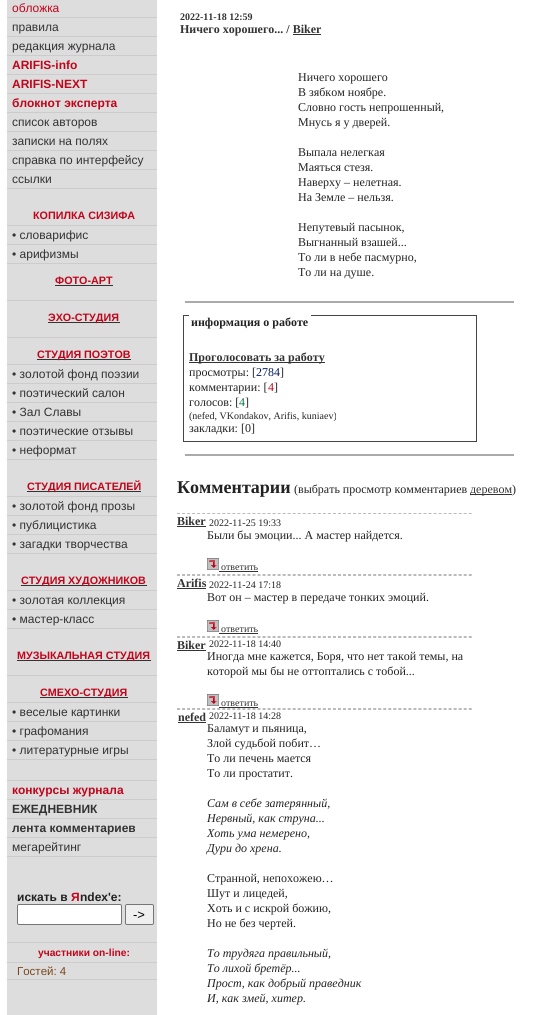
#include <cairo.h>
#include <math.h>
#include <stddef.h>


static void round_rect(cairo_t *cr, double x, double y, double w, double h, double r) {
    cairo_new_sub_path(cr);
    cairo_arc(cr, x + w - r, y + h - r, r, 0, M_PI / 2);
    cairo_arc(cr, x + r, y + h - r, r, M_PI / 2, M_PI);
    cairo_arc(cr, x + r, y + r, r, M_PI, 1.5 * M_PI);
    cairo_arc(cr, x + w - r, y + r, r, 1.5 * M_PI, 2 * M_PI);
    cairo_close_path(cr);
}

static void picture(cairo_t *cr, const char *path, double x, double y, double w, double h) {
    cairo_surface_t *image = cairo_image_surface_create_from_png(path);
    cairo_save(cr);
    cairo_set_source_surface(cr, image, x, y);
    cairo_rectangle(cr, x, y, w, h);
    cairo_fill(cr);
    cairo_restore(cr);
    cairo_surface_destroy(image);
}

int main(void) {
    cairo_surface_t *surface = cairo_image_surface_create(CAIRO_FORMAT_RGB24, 539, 1015);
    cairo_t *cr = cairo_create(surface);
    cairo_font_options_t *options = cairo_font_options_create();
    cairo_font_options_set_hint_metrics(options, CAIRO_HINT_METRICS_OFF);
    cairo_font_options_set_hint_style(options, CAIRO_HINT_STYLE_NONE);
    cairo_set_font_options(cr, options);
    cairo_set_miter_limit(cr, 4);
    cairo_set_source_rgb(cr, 1, 1, 1);
    cairo_paint(cr);
    cairo_set_source_rgb(cr, 0.867, 0.867, 0.867);
    cairo_rectangle(cr, 7, 0, 150, 1015);
    cairo_fill(cr);
    cairo_set_source_rgb(cr, 0.8, 0.8, 0.8);
    cairo_rectangle(cr, 7, 188, 150, 1);
    cairo_fill(cr);
    cairo_select_font_face(cr, "Liberation Sans", CAIRO_FONT_SLANT_NORMAL, CAIRO_FONT_WEIGHT_NORMAL);
    cairo_set_font_size(cr, 12);
    cairo_set_source_rgb(cr, 0.761, 0.016, 0.102);
    cairo_move_to(cr, 12, 12);
    cairo_show_text(cr, "обложка");
    cairo_set_source_rgb(cr, 0.8, 0.8, 0.8);
    cairo_rectangle(cr, 7, 17, 150, 1);
    cairo_fill(cr);
    cairo_set_source_rgb(cr, 0.2, 0.2, 0.2);
    cairo_move_to(cr, 12, 31);
    cairo_show_text(cr, "правила");
    cairo_set_source_rgb(cr, 0.8, 0.8, 0.8);
    cairo_rectangle(cr, 7, 36, 150, 1);
    cairo_fill(cr);
    cairo_set_source_rgb(cr, 0.2, 0.2, 0.2);
    cairo_move_to(cr, 12, 50);
    cairo_show_text(cr, "редакция журнала");
    cairo_set_source_rgb(cr, 0.8, 0.8, 0.8);
    cairo_rectangle(cr, 7, 55, 150, 1);
    cairo_fill(cr);
    cairo_select_font_face(cr, "Liberation Sans", CAIRO_FONT_SLANT_NORMAL, CAIRO_FONT_WEIGHT_BOLD);
    cairo_set_source_rgb(cr, 0.761, 0.016, 0.102);
    cairo_move_to(cr, 12, 69);
    cairo_show_text(cr, "ARIFIS-info");
    cairo_set_source_rgb(cr, 0.8, 0.8, 0.8);
    cairo_rectangle(cr, 7, 74, 150, 1);
    cairo_fill(cr);
    cairo_set_source_rgb(cr, 0.761, 0.016, 0.102);
    cairo_move_to(cr, 12, 88);
    cairo_show_text(cr, "ARIFIS-NEXT");
    cairo_set_source_rgb(cr, 0.8, 0.8, 0.8);
    cairo_rectangle(cr, 7, 93, 150, 1);
    cairo_fill(cr);
    cairo_set_source_rgb(cr, 0.761, 0.016, 0.102);
    cairo_move_to(cr, 12, 107);
    cairo_show_text(cr, "блокнот эксперта");
    cairo_set_source_rgb(cr, 0.8, 0.8, 0.8);
    cairo_rectangle(cr, 7, 112, 150, 1);
    cairo_fill(cr);
    cairo_select_font_face(cr, "Liberation Sans", CAIRO_FONT_SLANT_NORMAL, CAIRO_FONT_WEIGHT_NORMAL);
    cairo_set_source_rgb(cr, 0.2, 0.2, 0.2);
    cairo_move_to(cr, 12, 126);
    cairo_show_text(cr, "список авторов");
    cairo_set_source_rgb(cr, 0.8, 0.8, 0.8);
    cairo_rectangle(cr, 7, 131, 150, 1);
    cairo_fill(cr);
    cairo_set_source_rgb(cr, 0.2, 0.2, 0.2);
    cairo_move_to(cr, 12, 145);
    cairo_show_text(cr, "записки на полях");
    cairo_set_source_rgb(cr, 0.8, 0.8, 0.8);
    cairo_rectangle(cr, 7, 150, 150, 1);
    cairo_fill(cr);
    cairo_set_source_rgb(cr, 0.2, 0.2, 0.2);
    cairo_move_to(cr, 12, 164);
    cairo_show_text(cr, "справка по интерфейсу");
    cairo_set_source_rgb(cr, 0.8, 0.8, 0.8);
    cairo_rectangle(cr, 7, 169, 150, 1);
    cairo_fill(cr);
    cairo_set_source_rgb(cr, 0.2, 0.2, 0.2);
    cairo_move_to(cr, 12, 183);
    cairo_show_text(cr, "ссылки");
    cairo_select_font_face(cr, "Liberation Sans", CAIRO_FONT_SLANT_NORMAL, CAIRO_FONT_WEIGHT_BOLD);
    cairo_set_font_size(cr, 10.75);
    cairo_set_source_rgb(cr, 0.761, 0.016, 0.102);
    cairo_move_to(cr, 33, 219);
    cairo_show_text(cr, "КОПИЛКА СИЗИФА");
    cairo_set_source_rgb(cr, 0.8, 0.8, 0.8);
    cairo_rectangle(cr, 7, 263, 150, 1);
    cairo_fill(cr);
    cairo_rectangle(cr, 7, 225, 150, 1);
    cairo_fill(cr);
    cairo_select_font_face(cr, "Liberation Sans", CAIRO_FONT_SLANT_NORMAL, CAIRO_FONT_WEIGHT_NORMAL);
    cairo_set_font_size(cr, 12);
    cairo_set_source_rgb(cr, 0.2, 0.2, 0.2);
    cairo_move_to(cr, 12, 239);
    cairo_show_text(cr, "• словарифис");
    cairo_set_source_rgb(cr, 0.8, 0.8, 0.8);
    cairo_rectangle(cr, 7, 244, 150, 1);
    cairo_fill(cr);
    cairo_set_source_rgb(cr, 0.2, 0.2, 0.2);
    cairo_move_to(cr, 12, 258);
    cairo_show_text(cr, "• арифизмы");
    cairo_select_font_face(cr, "Liberation Sans", CAIRO_FONT_SLANT_NORMAL, CAIRO_FONT_WEIGHT_BOLD);
    cairo_set_font_size(cr, 10.75);
    cairo_set_source_rgb(cr, 0.761, 0.016, 0.102);
    cairo_move_to(cr, 55, 284);
    cairo_show_text(cr, "ФОТО-АРТ");
    cairo_set_source_rgb(cr, 0.2, 0.2, 0.2);
    cairo_rectangle(cr, 55, 285, 58, 1);
    cairo_fill(cr);
    cairo_set_source_rgb(cr, 0.8, 0.8, 0.8);
    cairo_rectangle(cr, 7, 300, 150, 1);
    cairo_fill(cr);
    cairo_set_source_rgb(cr, 0.2, 0.2, 0.2);
    cairo_rectangle(cr, 48, 322, 72, 1);
    cairo_fill(cr);
    cairo_set_source_rgb(cr, 0.761, 0.016, 0.102);
    cairo_move_to(cr, 48, 321);
    cairo_show_text(cr, "ЭХО-СТУДИЯ");
    cairo_set_source_rgb(cr, 0.8, 0.8, 0.8);
    cairo_rectangle(cr, 7, 337, 150, 1);
    cairo_fill(cr);
    cairo_set_source_rgb(cr, 0.2, 0.2, 0.2);
    cairo_rectangle(cr, 37, 359, 94, 1);
    cairo_fill(cr);
    cairo_set_source_rgb(cr, 0.761, 0.016, 0.102);
    cairo_move_to(cr, 37, 358);
    cairo_show_text(cr, "СТУДИЯ ПОЭТОВ");
    cairo_set_source_rgb(cr, 0.8, 0.8, 0.8);
    cairo_rectangle(cr, 7, 459, 150, 1);
    cairo_fill(cr);
    cairo_rectangle(cr, 7, 364, 150, 1);
    cairo_fill(cr);
    cairo_select_font_face(cr, "Liberation Sans", CAIRO_FONT_SLANT_NORMAL, CAIRO_FONT_WEIGHT_NORMAL);
    cairo_set_font_size(cr, 12);
    cairo_set_source_rgb(cr, 0.2, 0.2, 0.2);
    cairo_move_to(cr, 12, 378);
    cairo_show_text(cr, "• золотой фонд поэзии");
    cairo_set_source_rgb(cr, 0.8, 0.8, 0.8);
    cairo_rectangle(cr, 7, 383, 150, 1);
    cairo_fill(cr);
    cairo_set_source_rgb(cr, 0.2, 0.2, 0.2);
    cairo_move_to(cr, 12, 397);
    cairo_show_text(cr, "• поэтический салон");
    cairo_set_source_rgb(cr, 0.8, 0.8, 0.8);
    cairo_rectangle(cr, 7, 402, 150, 1);
    cairo_fill(cr);
    cairo_set_source_rgb(cr, 0.2, 0.2, 0.2);
    cairo_move_to(cr, 12, 416);
    cairo_show_text(cr, "• Зал Славы");
    cairo_set_source_rgb(cr, 0.8, 0.8, 0.8);
    cairo_rectangle(cr, 7, 421, 150, 1);
    cairo_fill(cr);
    cairo_set_source_rgb(cr, 0.2, 0.2, 0.2);
    cairo_move_to(cr, 12, 435);
    cairo_show_text(cr, "• поэтические отзывы");
    cairo_set_source_rgb(cr, 0.8, 0.8, 0.8);
    cairo_rectangle(cr, 7, 440, 150, 1);
    cairo_fill(cr);
    cairo_set_source_rgb(cr, 0.2, 0.2, 0.2);
    cairo_move_to(cr, 12, 454);
    cairo_show_text(cr, "• неформат");
    cairo_rectangle(cr, 27, 491, 114, 1);
    cairo_fill(cr);
    cairo_select_font_face(cr, "Liberation Sans", CAIRO_FONT_SLANT_NORMAL, CAIRO_FONT_WEIGHT_BOLD);
    cairo_set_font_size(cr, 10.75);
    cairo_set_source_rgb(cr, 0.761, 0.016, 0.102);
    cairo_move_to(cr, 27, 490);
    cairo_show_text(cr, "СТУДИЯ ПИСАТЕЛЕЙ");
    cairo_set_source_rgb(cr, 0.8, 0.8, 0.8);
    cairo_rectangle(cr, 7, 553, 150, 1);
    cairo_fill(cr);
    cairo_rectangle(cr, 7, 496, 150, 1);
    cairo_fill(cr);
    cairo_select_font_face(cr, "Liberation Sans", CAIRO_FONT_SLANT_NORMAL, CAIRO_FONT_WEIGHT_NORMAL);
    cairo_set_font_size(cr, 12);
    cairo_set_source_rgb(cr, 0.2, 0.2, 0.2);
    cairo_move_to(cr, 12, 510);
    cairo_show_text(cr, "• золотой фонд прозы");
    cairo_set_source_rgb(cr, 0.8, 0.8, 0.8);
    cairo_rectangle(cr, 7, 515, 150, 1);
    cairo_fill(cr);
    cairo_set_source_rgb(cr, 0.2, 0.2, 0.2);
    cairo_move_to(cr, 12, 529);
    cairo_show_text(cr, "• публицистика");
    cairo_set_source_rgb(cr, 0.8, 0.8, 0.8);
    cairo_rectangle(cr, 7, 534, 150, 1);
    cairo_fill(cr);
    cairo_set_source_rgb(cr, 0.2, 0.2, 0.2);
    cairo_move_to(cr, 12, 548);
    cairo_show_text(cr, "• загадки творчества");
    cairo_rectangle(cr, 21, 585, 126, 1);
    cairo_fill(cr);
    cairo_select_font_face(cr, "Liberation Sans", CAIRO_FONT_SLANT_NORMAL, CAIRO_FONT_WEIGHT_BOLD);
    cairo_set_font_size(cr, 10.75);
    cairo_set_source_rgb(cr, 0.761, 0.016, 0.102);
    cairo_move_to(cr, 21, 584);
    cairo_show_text(cr, "СТУДИЯ ХУДОЖНИКОВ");
    cairo_set_source_rgb(cr, 0.8, 0.8, 0.8);
    cairo_rectangle(cr, 7, 628, 150, 1);
    cairo_fill(cr);
    cairo_rectangle(cr, 7, 590, 150, 1);
    cairo_fill(cr);
    cairo_select_font_face(cr, "Liberation Sans", CAIRO_FONT_SLANT_NORMAL, CAIRO_FONT_WEIGHT_NORMAL);
    cairo_set_font_size(cr, 12);
    cairo_set_source_rgb(cr, 0.2, 0.2, 0.2);
    cairo_move_to(cr, 12, 604);
    cairo_show_text(cr, "• золотая коллекция");
    cairo_set_source_rgb(cr, 0.8, 0.8, 0.8);
    cairo_rectangle(cr, 7, 609, 150, 1);
    cairo_fill(cr);
    cairo_set_source_rgb(cr, 0.2, 0.2, 0.2);
    cairo_move_to(cr, 12, 623);
    cairo_show_text(cr, "• мастер-класс");
    cairo_rectangle(cr, 17, 660, 134, 1);
    cairo_fill(cr);
    cairo_select_font_face(cr, "Liberation Sans", CAIRO_FONT_SLANT_NORMAL, CAIRO_FONT_WEIGHT_BOLD);
    cairo_set_font_size(cr, 10.75);
    cairo_set_source_rgb(cr, 0.761, 0.016, 0.102);
    cairo_move_to(cr, 17, 659);
    cairo_show_text(cr, "МУЗЫКАЛЬНАЯ СТУДИЯ");
    cairo_set_source_rgb(cr, 0.8, 0.8, 0.8);
    cairo_rectangle(cr, 7, 675, 150, 1);
    cairo_fill(cr);
    cairo_set_source_rgb(cr, 0.2, 0.2, 0.2);
    cairo_rectangle(cr, 40, 697, 88, 1);
    cairo_fill(cr);
    cairo_set_source_rgb(cr, 0.761, 0.016, 0.102);
    cairo_move_to(cr, 40, 696);
    cairo_show_text(cr, "СМЕХО-СТУДИЯ");
    cairo_set_source_rgb(cr, 0.8, 0.8, 0.8);
    cairo_rectangle(cr, 7, 759, 150, 1);
    cairo_fill(cr);
    cairo_rectangle(cr, 7, 702, 150, 1);
    cairo_fill(cr);
    cairo_select_font_face(cr, "Liberation Sans", CAIRO_FONT_SLANT_NORMAL, CAIRO_FONT_WEIGHT_NORMAL);
    cairo_set_font_size(cr, 12);
    cairo_set_source_rgb(cr, 0.2, 0.2, 0.2);
    cairo_move_to(cr, 12, 716);
    cairo_show_text(cr, "• веселые картинки");
    cairo_set_source_rgb(cr, 0.8, 0.8, 0.8);
    cairo_rectangle(cr, 7, 721, 150, 1);
    cairo_fill(cr);
    cairo_set_source_rgb(cr, 0.2, 0.2, 0.2);
    cairo_move_to(cr, 12, 735);
    cairo_show_text(cr, "• графомания");
    cairo_set_source_rgb(cr, 0.8, 0.8, 0.8);
    cairo_rectangle(cr, 7, 740, 150, 1);
    cairo_fill(cr);
    cairo_set_source_rgb(cr, 0.2, 0.2, 0.2);
    cairo_move_to(cr, 12, 754);
    cairo_show_text(cr, "• литературные игры");
    cairo_set_source_rgb(cr, 0.8, 0.8, 0.8);
    cairo_rectangle(cr, 7, 856, 150, 1);
    cairo_fill(cr);
    cairo_rectangle(cr, 7, 780, 150, 1);
    cairo_fill(cr);
    cairo_select_font_face(cr, "Liberation Sans", CAIRO_FONT_SLANT_NORMAL, CAIRO_FONT_WEIGHT_BOLD);
    cairo_set_source_rgb(cr, 0.761, 0.016, 0.102);
    cairo_move_to(cr, 12, 794);
    cairo_show_text(cr, "конкурсы журнала");
    cairo_set_source_rgb(cr, 0.8, 0.8, 0.8);
    cairo_rectangle(cr, 7, 799, 150, 1);
    cairo_fill(cr);
    cairo_set_source_rgb(cr, 0.2, 0.2, 0.2);
    cairo_move_to(cr, 12, 813);
    cairo_show_text(cr, "ЕЖЕДНЕВНИК");
    cairo_set_source_rgb(cr, 0.8, 0.8, 0.8);
    cairo_rectangle(cr, 7, 818, 150, 1);
    cairo_fill(cr);
    cairo_set_source_rgb(cr, 0.2, 0.2, 0.2);
    cairo_move_to(cr, 12, 832);
    cairo_show_text(cr, "лента комментариев");
    cairo_set_source_rgb(cr, 0.8, 0.8, 0.8);
    cairo_rectangle(cr, 7, 837, 150, 1);
    cairo_fill(cr);
    cairo_select_font_face(cr, "Liberation Sans", CAIRO_FONT_SLANT_NORMAL, CAIRO_FONT_WEIGHT_NORMAL);
    cairo_set_source_rgb(cr, 0.2, 0.2, 0.2);
    cairo_move_to(cr, 12, 851);
    cairo_show_text(cr, "мегарейтинг");
    cairo_set_source_rgb(cr, 0.8, 0.8, 0.8);
    cairo_rectangle(cr, 7, 942, 150, 1);
    cairo_fill(cr);
    cairo_select_font_face(cr, "Liberation Sans", CAIRO_FONT_SLANT_NORMAL, CAIRO_FONT_WEIGHT_BOLD);
    cairo_set_source_rgb(cr, 0.133, 0.133, 0.133);
    cairo_move_to(cr, 17, 901);
    cairo_show_text(cr, "искать в");
    cairo_set_source_rgb(cr, 0.761, 0.016, 0.102);
    cairo_move_to(cr, 71, 901);
    cairo_show_text(cr, "Я");
    cairo_set_source_rgb(cr, 0.133, 0.133, 0.133);
    cairo_move_to(cr, 80, 901);
    cairo_show_text(cr, "ndex'е:");
    cairo_set_source_rgb(cr, 1, 1, 1);
    round_rect(cr, 17.5, 904.5, 104, 20, 1.5);
    cairo_fill_preserve(cr);
    cairo_set_source_rgb(cr, 0.463, 0.463, 0.463);
    cairo_set_line_width(cr, 1);
    cairo_stroke(cr);
    cairo_set_source_rgb(cr, 0.937, 0.937, 0.937);
    round_rect(cr, 125.5, 904.5, 28, 20, 1.5);
    cairo_fill_preserve(cr);
    cairo_set_source_rgb(cr, 0.463, 0.463, 0.463);
    cairo_stroke(cr);
    cairo_select_font_face(cr, "Liberation Sans", CAIRO_FONT_SLANT_NORMAL, CAIRO_FONT_WEIGHT_NORMAL);
    cairo_set_font_size(cr, 13);
    cairo_set_source_rgb(cr, 0, 0, 0);
    cairo_move_to(cr, 133, 919);
    cairo_show_text(cr, "->");
    cairo_set_source_rgb(cr, 0.8, 0.8, 0.8);
    cairo_rectangle(cr, 7, 979, 150, 1);
    cairo_fill(cr);
    cairo_select_font_face(cr, "Liberation Sans", CAIRO_FONT_SLANT_NORMAL, CAIRO_FONT_WEIGHT_BOLD);
    cairo_set_font_size(cr, 10.25);
    cairo_set_source_rgb(cr, 0.761, 0.016, 0.102);
    cairo_move_to(cr, 38, 956);
    cairo_show_text(cr, "участники on-line:");
    cairo_set_source_rgb(cr, 0.8, 0.8, 0.8);
    cairo_rectangle(cr, 7, 962, 150, 1);
    cairo_fill(cr);
    cairo_select_font_face(cr, "Liberation Sans", CAIRO_FONT_SLANT_NORMAL, CAIRO_FONT_WEIGHT_NORMAL);
    cairo_set_font_size(cr, 11.5);
    cairo_set_source_rgb(cr, 0.478, 0.278, 0.118);
    cairo_move_to(cr, 17, 975);
    cairo_show_text(cr, "Гостей: 4");
    cairo_select_font_face(cr, "Liberation Serif", CAIRO_FONT_SLANT_NORMAL, CAIRO_FONT_WEIGHT_BOLD);
    cairo_set_font_size(cr, 10);
    cairo_set_source_rgb(cr, 0.2, 0.2, 0.2);
    cairo_move_to(cr, 180, 20);
    cairo_show_text(cr, "2022-11-18 12:59");
    cairo_set_font_size(cr, 12);
    cairo_move_to(cr, 180, 33);
    cairo_show_text(cr, "Ничего хорошего... / Biker");
    cairo_rectangle(cr, 293, 34, 28, 1);
    cairo_fill(cr);
    cairo_select_font_face(cr, "Liberation Serif", CAIRO_FONT_SLANT_NORMAL, CAIRO_FONT_WEIGHT_NORMAL);
    cairo_set_source_rgb(cr, 0.133, 0.133, 0.133);
    cairo_move_to(cr, 298, 81);
    cairo_show_text(cr, "Ничего хорошего");
    cairo_move_to(cr, 298, 96);
    cairo_show_text(cr, "В зябком ноябре.");
    cairo_move_to(cr, 298, 111);
    cairo_show_text(cr, "Словно гость непрошенный,");
    cairo_move_to(cr, 298, 126);
    cairo_show_text(cr, "Мнусь я у дверей.");
    cairo_move_to(cr, 298, 156);
    cairo_show_text(cr, "Выпала нелегкая");
    cairo_move_to(cr, 298, 171);
    cairo_show_text(cr, "Маяться стезя.");
    cairo_move_to(cr, 298, 186);
    cairo_show_text(cr, "Наверху – нелетная.");
    cairo_move_to(cr, 298, 201);
    cairo_show_text(cr, "На Земле – нельзя.");
    cairo_move_to(cr, 298, 231);
    cairo_show_text(cr, "Непутевый пасынок,");
    cairo_move_to(cr, 298, 246);
    cairo_show_text(cr, "Выгнанный взашей...");
    cairo_move_to(cr, 298, 261);
    cairo_show_text(cr, "То ли в небе пасмурно,");
    cairo_move_to(cr, 298, 276);
    cairo_show_text(cr, "То ли на душе.");
    cairo_set_source_rgb(cr, 0.667, 0.667, 0.667);
    cairo_rectangle(cr, 185, 301, 329, 2);
    cairo_fill(cr);
    cairo_rectangle(cr, 183.5, 315.5, 293, 126);
    cairo_set_source_rgb(cr, 0.267, 0.267, 0.267);
    cairo_stroke(cr);
    cairo_set_source_rgb(cr, 1, 1, 1);
    cairo_rectangle(cr, 189, 315, 122, 1);
    cairo_fill(cr);
    cairo_select_font_face(cr, "Liberation Serif", CAIRO_FONT_SLANT_NORMAL, CAIRO_FONT_WEIGHT_BOLD);
    cairo_set_source_rgb(cr, 0.133, 0.133, 0.133);
    cairo_move_to(cr, 191, 326);
    cairo_show_text(cr, "информация о работе");
    cairo_set_source_rgb(cr, 0.2, 0.2, 0.2);
    cairo_rectangle(cr, 189, 362, 136, 1);
    cairo_fill(cr);
    cairo_move_to(cr, 189, 361);
    cairo_show_text(cr, "Проголосовать за работу");
    cairo_select_font_face(cr, "Liberation Serif", CAIRO_FONT_SLANT_NORMAL, CAIRO_FONT_WEIGHT_NORMAL);
    cairo_set_source_rgb(cr, 0.133, 0.133, 0.133);
    cairo_move_to(cr, 189, 376);
    cairo_show_text(cr, "просмотры: [");
    cairo_set_source_rgb(cr, 0.02, 0.114, 0.384);
    cairo_move_to(cr, 256, 376);
    cairo_show_text(cr, "2784");
    cairo_set_source_rgb(cr, 0.133, 0.133, 0.133);
    cairo_move_to(cr, 280, 376);
    cairo_show_text(cr, "]");
    cairo_move_to(cr, 189, 391);
    cairo_show_text(cr, "комментарии: [");
    cairo_set_source_rgb(cr, 0.761, 0.016, 0.102);
    cairo_move_to(cr, 268, 391);
    cairo_show_text(cr, "4");
    cairo_set_source_rgb(cr, 0.133, 0.133, 0.133);
    cairo_move_to(cr, 274, 391);
    cairo_show_text(cr, "]");
    cairo_move_to(cr, 189, 406);
    cairo_show_text(cr, "голосов: [");
    cairo_set_source_rgb(cr, 0.02, 0.475, 0.267);
    cairo_move_to(cr, 239, 406);
    cairo_show_text(cr, "4");
    cairo_set_source_rgb(cr, 0.133, 0.133, 0.133);
    cairo_move_to(cr, 245, 406);
    cairo_show_text(cr, "]");
    cairo_set_font_size(cr, 10);
    cairo_move_to(cr, 189, 419);
    cairo_show_text(cr, "(nefed, VKondakov, Arifis, kuniaev)");
    cairo_set_font_size(cr, 12);
    cairo_move_to(cr, 189, 432);
    cairo_show_text(cr, "закладки: [0]");
    cairo_set_source_rgb(cr, 0.667, 0.667, 0.667);
    cairo_rectangle(cr, 185, 454, 329, 2);
    cairo_fill(cr);
    cairo_select_font_face(cr, "Liberation Serif", CAIRO_FONT_SLANT_NORMAL, CAIRO_FONT_WEIGHT_BOLD);
    cairo_set_font_size(cr, 18);
    cairo_set_source_rgb(cr, 0.133, 0.133, 0.133);
    cairo_move_to(cr, 177, 493);
    cairo_show_text(cr, "Комментарии");
    cairo_select_font_face(cr, "Liberation Serif", CAIRO_FONT_SLANT_NORMAL, CAIRO_FONT_WEIGHT_NORMAL);
    cairo_set_font_size(cr, 12);
    cairo_move_to(cr, 294, 493);
    cairo_show_text(cr, "(выбрать просмотр комментариев");
    cairo_set_source_rgb(cr, 0.2, 0.2, 0.2);
    cairo_rectangle(cr, 470, 494, 42, 1);
    cairo_fill(cr);
    cairo_move_to(cr, 470, 493);
    cairo_show_text(cr, "деревом");
    cairo_set_source_rgb(cr, 0.133, 0.133, 0.133);
    cairo_move_to(cr, 512, 493);
    cairo_show_text(cr, ")");
    cairo_new_path(cr);
    cairo_move_to(cr, 177, 513.5);
    cairo_line_to(cr, 472, 513.5);
    cairo_set_source_rgb(cr, 0.733, 0.733, 0.733);
    cairo_set_dash(cr, (double[]){3, 2.03}, 2, 0);
    cairo_stroke(cr);
    cairo_new_path(cr);
    cairo_move_to(cr, 177, 574.5);
    cairo_line_to(cr, 472, 574.5);
    cairo_stroke(cr);
    cairo_select_font_face(cr, "Liberation Serif", CAIRO_FONT_SLANT_NORMAL, CAIRO_FONT_WEIGHT_BOLD);
    cairo_set_source_rgb(cr, 0.2, 0.2, 0.2);
    cairo_move_to(cr, 177, 525);
    cairo_show_text(cr, "Biker");
    cairo_rectangle(cr, 177, 526, 29, 1);
    cairo_fill(cr);
    cairo_select_font_face(cr, "Liberation Serif", CAIRO_FONT_SLANT_NORMAL, CAIRO_FONT_WEIGHT_NORMAL);
    cairo_set_font_size(cr, 10);
    cairo_set_source_rgb(cr, 0.133, 0.133, 0.133);
    cairo_move_to(cr, 209, 526);
    cairo_show_text(cr, "2022-11-25 19:33");
    cairo_set_font_size(cr, 12);
    cairo_move_to(cr, 207, 539);
    cairo_show_text(cr, "Были бы эмоции... А мастер найдется.");
    picture(cr, "img1.png", 207, 558, 12, 12);
    cairo_set_font_size(cr, 10);
    cairo_set_source_rgb(cr, 0.2, 0.2, 0.2);
    cairo_move_to(cr, 221, 570);
    cairo_show_text(cr, "ответить");
    cairo_rectangle(cr, 219, 571, 39, 1);
    cairo_fill(cr);
    cairo_new_path(cr);
    cairo_move_to(cr, 177, 575.5);
    cairo_line_to(cr, 472, 575.5);
    cairo_set_source_rgb(cr, 0.733, 0.733, 0.733);
    cairo_stroke(cr);
    cairo_new_path(cr);
    cairo_move_to(cr, 177, 636.5);
    cairo_line_to(cr, 472, 636.5);
    cairo_stroke(cr);
    cairo_select_font_face(cr, "Liberation Serif", CAIRO_FONT_SLANT_NORMAL, CAIRO_FONT_WEIGHT_BOLD);
    cairo_set_font_size(cr, 12);
    cairo_set_source_rgb(cr, 0.2, 0.2, 0.2);
    cairo_move_to(cr, 177, 587);
    cairo_show_text(cr, "Arifis");
    cairo_rectangle(cr, 177, 588, 29, 1);
    cairo_fill(cr);
    cairo_select_font_face(cr, "Liberation Serif", CAIRO_FONT_SLANT_NORMAL, CAIRO_FONT_WEIGHT_NORMAL);
    cairo_set_font_size(cr, 10);
    cairo_set_source_rgb(cr, 0.133, 0.133, 0.133);
    cairo_move_to(cr, 209, 588);
    cairo_show_text(cr, "2022-11-24 17:18");
    cairo_set_font_size(cr, 12);
    cairo_move_to(cr, 207, 601);
    cairo_show_text(cr, "Вот он – мастер в передаче тонких эмоций.");
    picture(cr, "img1.png", 207, 620, 12, 12);
    cairo_set_font_size(cr, 10);
    cairo_set_source_rgb(cr, 0.2, 0.2, 0.2);
    cairo_move_to(cr, 221, 632);
    cairo_show_text(cr, "ответить");
    cairo_rectangle(cr, 219, 633, 39, 1);
    cairo_fill(cr);
    cairo_new_path(cr);
    cairo_move_to(cr, 177, 637.5);
    cairo_line_to(cr, 472, 637.5);
    cairo_set_source_rgb(cr, 0.733, 0.733, 0.733);
    cairo_stroke(cr);
    cairo_new_path(cr);
    cairo_move_to(cr, 177, 708.5);
    cairo_line_to(cr, 472, 708.5);
    cairo_stroke(cr);
    cairo_select_font_face(cr, "Liberation Serif", CAIRO_FONT_SLANT_NORMAL, CAIRO_FONT_WEIGHT_BOLD);
    cairo_set_font_size(cr, 12);
    cairo_set_source_rgb(cr, 0.2, 0.2, 0.2);
    cairo_move_to(cr, 177, 649);
    cairo_show_text(cr, "Biker");
    cairo_rectangle(cr, 177, 650, 29, 1);
    cairo_fill(cr);
    cairo_select_font_face(cr, "Liberation Serif", CAIRO_FONT_SLANT_NORMAL, CAIRO_FONT_WEIGHT_NORMAL);
    cairo_set_font_size(cr, 10);
    cairo_set_source_rgb(cr, 0.133, 0.133, 0.133);
    cairo_move_to(cr, 209, 647);
    cairo_show_text(cr, "2022-11-18 14:40");
    cairo_set_font_size(cr, 12);
    cairo_move_to(cr, 207, 660);
    cairo_show_text(cr, "Иногда мне кажется, Боря, что нет такой темы, на");
    cairo_move_to(cr, 207, 675);
    cairo_show_text(cr, "которой мы бы не оттоптались с тобой...");
    picture(cr, "img1.png", 207, 694, 12, 12);
    cairo_set_font_size(cr, 10);
    cairo_set_source_rgb(cr, 0.2, 0.2, 0.2);
    cairo_move_to(cr, 221, 706);
    cairo_show_text(cr, "ответить");
    cairo_rectangle(cr, 219, 707, 39, 1);
    cairo_fill(cr);
    cairo_new_path(cr);
    cairo_move_to(cr, 177, 709.5);
    cairo_line_to(cr, 472, 709.5);
    cairo_set_source_rgb(cr, 0.733, 0.733, 0.733);
    cairo_stroke(cr);
    cairo_select_font_face(cr, "Liberation Serif", CAIRO_FONT_SLANT_NORMAL, CAIRO_FONT_WEIGHT_BOLD);
    cairo_set_font_size(cr, 12);
    cairo_set_source_rgb(cr, 0.2, 0.2, 0.2);
    cairo_move_to(cr, 178, 721);
    cairo_show_text(cr, "nefed");
    cairo_rectangle(cr, 178, 722, 28, 1);
    cairo_fill(cr);
    cairo_select_font_face(cr, "Liberation Serif", CAIRO_FONT_SLANT_NORMAL, CAIRO_FONT_WEIGHT_NORMAL);
    cairo_set_font_size(cr, 10);
    cairo_set_source_rgb(cr, 0.133, 0.133, 0.133);
    cairo_move_to(cr, 209, 719);
    cairo_show_text(cr, "2022-11-18 14:28");
    cairo_set_font_size(cr, 12);
    cairo_move_to(cr, 207, 732);
    cairo_show_text(cr, "Баламут и пьяница,");
    cairo_move_to(cr, 207, 747);
    cairo_show_text(cr, "Злой судьбой побит…");
    cairo_move_to(cr, 207, 762);
    cairo_show_text(cr, "То ли печень мается");
    cairo_move_to(cr, 207, 777);
    cairo_show_text(cr, "То ли простатит.");
    cairo_select_font_face(cr, "Liberation Serif", CAIRO_FONT_SLANT_ITALIC, CAIRO_FONT_WEIGHT_NORMAL);
    cairo_move_to(cr, 207, 807);
    cairo_show_text(cr, "Сам в себе затерянный,");
    cairo_move_to(cr, 207, 822);
    cairo_show_text(cr, "Нервный, как струна...");
    cairo_move_to(cr, 207, 837);
    cairo_show_text(cr, "Хоть ума немерено,");
    cairo_move_to(cr, 207, 852);
    cairo_show_text(cr, "Дури до хрена.");
    cairo_select_font_face(cr, "Liberation Serif", CAIRO_FONT_SLANT_NORMAL, CAIRO_FONT_WEIGHT_NORMAL);
    cairo_move_to(cr, 207, 882);
    cairo_show_text(cr, "Странной, непохожею…");
    cairo_move_to(cr, 207, 897);
    cairo_show_text(cr, "Шут и лицедей,");
    cairo_move_to(cr, 207, 912);
    cairo_show_text(cr, "Хоть и с искрой божию,");
    cairo_move_to(cr, 207, 927);
    cairo_show_text(cr, "Но не без чертей.");
    cairo_select_font_face(cr, "Liberation Serif", CAIRO_FONT_SLANT_ITALIC, CAIRO_FONT_WEIGHT_NORMAL);
    cairo_move_to(cr, 207, 957);
    cairo_show_text(cr, "То трудяга правильный,");
    cairo_move_to(cr, 207, 972);
    cairo_show_text(cr, "То лихой бретёр...");
    cairo_move_to(cr, 207, 987);
    cairo_show_text(cr, "Прост, как добрый праведник");
    cairo_move_to(cr, 207, 1002);
    cairo_show_text(cr, "И, как змей, хитер.");
    cairo_surface_write_to_png(surface, "page.png");
    cairo_font_options_destroy(options);
    cairo_destroy(cr);
    cairo_surface_destroy(surface);
    return 0;
}
